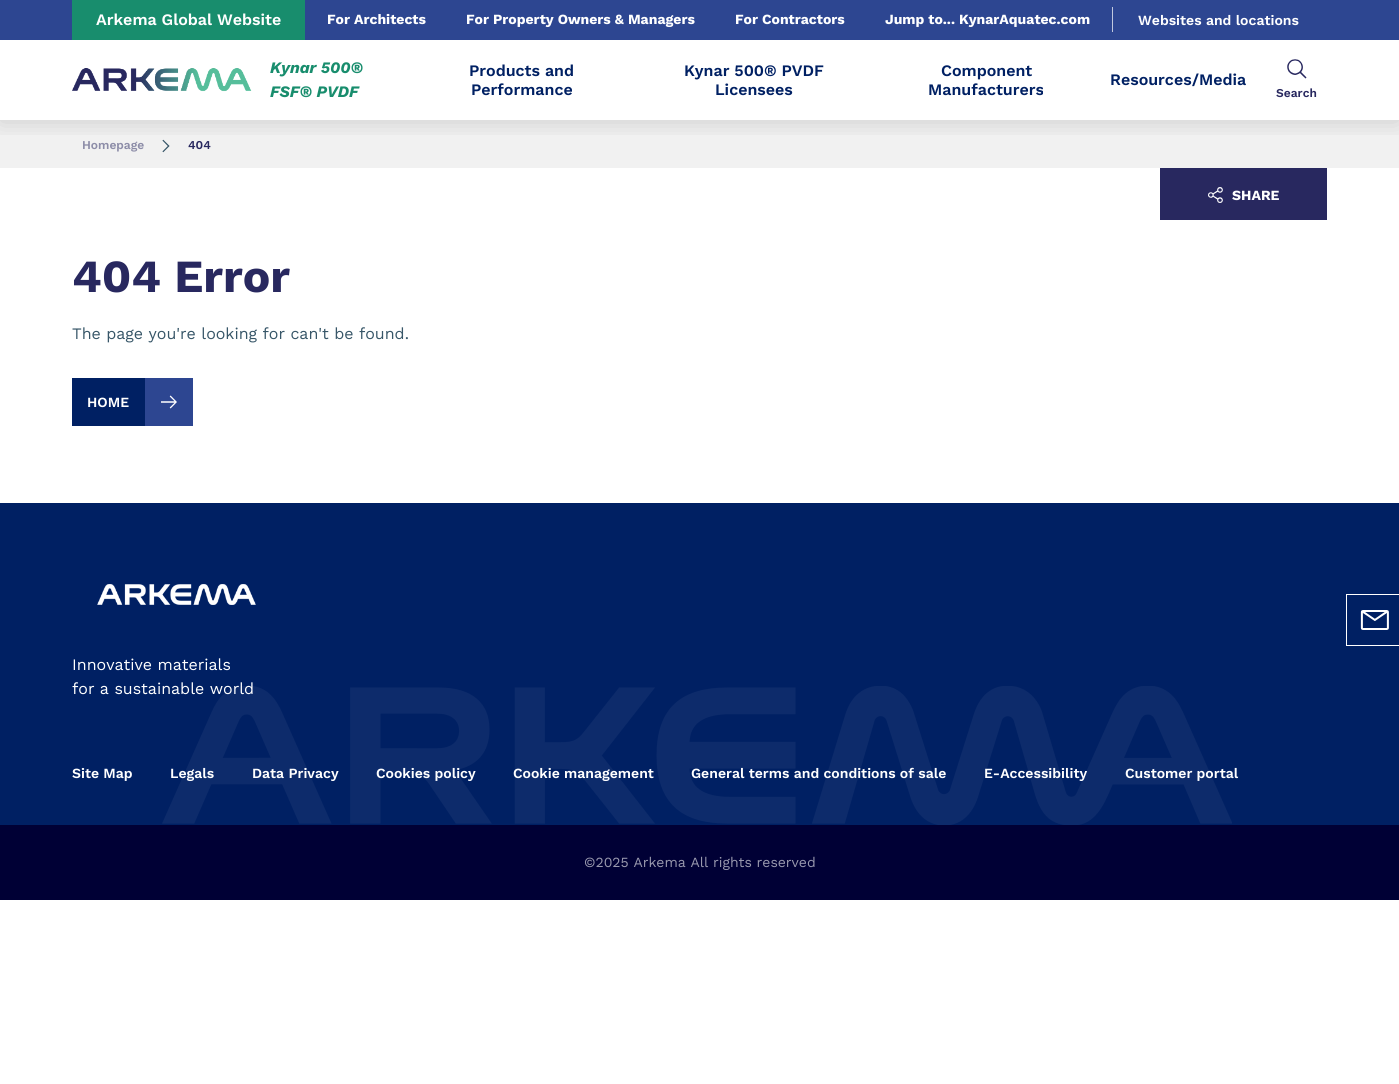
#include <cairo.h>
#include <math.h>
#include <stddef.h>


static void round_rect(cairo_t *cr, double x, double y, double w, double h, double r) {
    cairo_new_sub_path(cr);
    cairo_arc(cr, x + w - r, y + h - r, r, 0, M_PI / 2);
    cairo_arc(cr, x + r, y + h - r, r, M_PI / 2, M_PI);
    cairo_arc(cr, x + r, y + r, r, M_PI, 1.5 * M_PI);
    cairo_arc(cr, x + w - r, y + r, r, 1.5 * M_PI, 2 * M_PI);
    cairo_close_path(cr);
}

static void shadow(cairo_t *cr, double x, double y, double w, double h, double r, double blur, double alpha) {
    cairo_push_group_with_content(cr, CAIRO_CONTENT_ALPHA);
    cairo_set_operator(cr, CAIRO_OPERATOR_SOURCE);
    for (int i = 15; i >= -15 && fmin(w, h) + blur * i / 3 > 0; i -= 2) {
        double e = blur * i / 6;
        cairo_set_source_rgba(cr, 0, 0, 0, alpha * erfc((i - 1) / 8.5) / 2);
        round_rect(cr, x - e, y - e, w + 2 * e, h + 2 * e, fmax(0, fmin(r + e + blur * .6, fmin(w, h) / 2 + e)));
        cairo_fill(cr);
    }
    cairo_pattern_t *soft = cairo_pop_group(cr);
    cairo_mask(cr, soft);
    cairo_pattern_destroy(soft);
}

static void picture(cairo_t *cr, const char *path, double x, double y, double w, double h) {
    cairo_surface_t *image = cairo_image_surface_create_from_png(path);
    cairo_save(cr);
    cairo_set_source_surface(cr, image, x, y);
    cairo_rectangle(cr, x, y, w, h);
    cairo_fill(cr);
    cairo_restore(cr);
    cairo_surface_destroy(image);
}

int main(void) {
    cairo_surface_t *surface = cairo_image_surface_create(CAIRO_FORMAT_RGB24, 1399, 1084);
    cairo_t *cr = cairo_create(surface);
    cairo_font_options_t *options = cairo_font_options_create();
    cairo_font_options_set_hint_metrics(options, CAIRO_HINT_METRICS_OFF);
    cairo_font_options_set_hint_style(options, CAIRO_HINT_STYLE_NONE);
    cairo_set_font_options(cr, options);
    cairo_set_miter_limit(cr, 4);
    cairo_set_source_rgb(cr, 1, 1, 1);
    cairo_paint(cr);
    cairo_set_source_rgb(cr, 0.945, 0.945, 0.945);
    cairo_rectangle(cr, 0, 120, 1399, 48);
    cairo_fill(cr);
    picture(cr, "img3.png", 162, 139, 8, 14);
    cairo_save(cr);
    cairo_rectangle(cr, 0, 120, 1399, 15);
    cairo_clip(cr);
    cairo_set_source_rgb(cr, 0, 0, 0);
    shadow(cr, 0, 2, 1399, 120, 0, 12, 0.15);
    cairo_restore(cr);
    cairo_set_source_rgb(cr, 0.176, 0.275, 0.569);
    cairo_rectangle(cr, 0, 0, 1399, 40);
    cairo_fill(cr);
    cairo_set_source_rgb(cr, 0.094, 0.553, 0.427);
    cairo_rectangle(cr, 72, 0, 233, 40);
    cairo_fill(cr);
    cairo_select_font_face(cr, "Work Sans SemiBold", CAIRO_FONT_SLANT_NORMAL, CAIRO_FONT_WEIGHT_NORMAL);
    cairo_set_font_size(cr, 16);
    cairo_set_source_rgb(cr, 1, 1, 1);
    cairo_move_to(cr, 96, 25);
    cairo_show_text(cr, "Arkema Global Website");
    cairo_select_font_face(cr, "Work Sans", CAIRO_FONT_SLANT_NORMAL, CAIRO_FONT_WEIGHT_BOLD);
    cairo_set_font_size(cr, 14);
    cairo_move_to(cr, 327, 24);
    cairo_show_text(cr, "For Architects");
    cairo_move_to(cr, 466, 24);
    cairo_show_text(cr, "For Property Owners & Managers");
    cairo_move_to(cr, 735, 24);
    cairo_show_text(cr, "For Contractors");
    cairo_move_to(cr, 885, 24);
    cairo_show_text(cr, "Jump to... KynarAquatec.com");
    cairo_set_source_rgb(cr, 0.753, 0.784, 0.871);
    cairo_rectangle(cr, 1112, 7, 1, 25);
    cairo_fill(cr);
    cairo_select_font_face(cr, "Work Sans SemiBold", CAIRO_FONT_SLANT_NORMAL, CAIRO_FONT_WEIGHT_NORMAL);
    cairo_set_source_rgb(cr, 1, 1, 1);
    cairo_move_to(cr, 1138, 25);
    cairo_show_text(cr, "Websites and locations");
    picture(cr, "img1.png", 72, 68, 180, 24);
    cairo_select_font_face(cr, "Work Sans", CAIRO_FONT_SLANT_ITALIC, CAIRO_FONT_WEIGHT_BOLD);
    cairo_set_font_size(cr, 16);
    cairo_set_source_rgb(cr, 0.094, 0.553, 0.427);
    cairo_move_to(cr, 270, 73);
    cairo_show_text(cr, "Kynar 500®");
    cairo_move_to(cr, 270, 97);
    cairo_show_text(cr, "FSF® PVDF");
    cairo_select_font_face(cr, "Work Sans SemiBold", CAIRO_FONT_SLANT_NORMAL, CAIRO_FONT_WEIGHT_NORMAL);
    cairo_set_source_rgb(cr, 0, 0.125, 0.388);
    cairo_move_to(cr, 469, 76);
    cairo_show_text(cr, "Products and");
    cairo_move_to(cr, 471, 95);
    cairo_show_text(cr, "Performance");
    cairo_move_to(cr, 684, 76);
    cairo_show_text(cr, "Kynar 500® PVDF");
    cairo_move_to(cr, 715, 95);
    cairo_show_text(cr, "Licensees");
    cairo_move_to(cr, 941, 76);
    cairo_show_text(cr, "Component");
    cairo_move_to(cr, 928, 95);
    cairo_show_text(cr, "Manufacturers");
    cairo_move_to(cr, 1110, 85);
    cairo_show_text(cr, "Resources/Media");
    picture(cr, "img2.png", 1287, 59, 20, 20);
    cairo_set_font_size(cr, 12);
    cairo_set_source_rgb(cr, 0.157, 0.157, 0.373);
    cairo_move_to(cr, 1276, 97);
    cairo_show_text(cr, "Search");
    cairo_set_source_rgb(cr, 0.553, 0.553, 0.659);
    cairo_move_to(cr, 82, 149);
    cairo_show_text(cr, "Homepage");
    cairo_set_source_rgb(cr, 0.157, 0.157, 0.373);
    cairo_move_to(cr, 188, 149);
    cairo_show_text(cr, "404");
    cairo_rectangle(cr, 1160, 168, 167, 52);
    cairo_fill(cr);
    picture(cr, "img4.png", 1208, 187, 15, 16);
    cairo_select_font_face(cr, "Work Sans", CAIRO_FONT_SLANT_NORMAL, CAIRO_FONT_WEIGHT_BOLD);
    cairo_set_font_size(cr, 14);
    cairo_set_source_rgb(cr, 1, 1, 1);
    cairo_move_to(cr, 1232, 200);
    cairo_show_text(cr, "SHARE");
    cairo_set_font_size(cr, 46);
    cairo_set_source_rgb(cr, 0.157, 0.157, 0.373);
    cairo_move_to(cr, 72, 292);
    cairo_show_text(cr, "404 Error");
    cairo_select_font_face(cr, "Work Sans", CAIRO_FONT_SLANT_NORMAL, CAIRO_FONT_WEIGHT_NORMAL);
    cairo_set_font_size(cr, 16);
    cairo_set_source_rgb(cr, 0.216, 0.337, 0.408);
    cairo_move_to(cr, 72, 339);
    cairo_show_text(cr, "The page you're looking for can't be found.");
    cairo_set_source_rgb(cr, 0, 0.125, 0.388);
    cairo_rectangle(cr, 72, 378, 73, 48);
    cairo_fill(cr);
    cairo_select_font_face(cr, "Work Sans SemiBold", CAIRO_FONT_SLANT_NORMAL, CAIRO_FONT_WEIGHT_NORMAL);
    cairo_set_font_size(cr, 14);
    cairo_set_source_rgb(cr, 1, 1, 1);
    cairo_move_to(cr, 87, 407);
    cairo_show_text(cr, "HOME");
    cairo_set_source_rgb(cr, 0.176, 0.275, 0.569);
    cairo_rectangle(cr, 145, 378, 48, 48);
    cairo_fill(cr);
    picture(cr, "img5.png", 161, 395, 16, 14);
    cairo_set_source_rgb(cr, 0, 0.125, 0.388);
    cairo_rectangle(cr, 0, 503, 1399, 322);
    cairo_fill(cr);
    picture(cr, "img6.png", 162, 686, 1070, 139);
    picture(cr, "img7.png", 97, 584, 159, 21);
    cairo_select_font_face(cr, "Work Sans", CAIRO_FONT_SLANT_NORMAL, CAIRO_FONT_WEIGHT_NORMAL);
    cairo_set_font_size(cr, 16);
    cairo_set_source_rgb(cr, 1, 1, 1);
    cairo_move_to(cr, 72, 670);
    cairo_show_text(cr, "Innovative materials");
    cairo_move_to(cr, 72, 694);
    cairo_show_text(cr, "for a sustainable world");
    cairo_select_font_face(cr, "Work Sans SemiBold", CAIRO_FONT_SLANT_NORMAL, CAIRO_FONT_WEIGHT_NORMAL);
    cairo_set_font_size(cr, 14);
    cairo_move_to(cr, 72, 778);
    cairo_show_text(cr, "Site Map");
    cairo_move_to(cr, 170, 778);
    cairo_show_text(cr, "Legals");
    cairo_move_to(cr, 252, 778);
    cairo_show_text(cr, "Data Privacy");
    cairo_move_to(cr, 376, 778);
    cairo_show_text(cr, "Cookies policy");
    cairo_move_to(cr, 513, 778);
    cairo_show_text(cr, "Cookie management");
    cairo_move_to(cr, 691, 778);
    cairo_show_text(cr, "General terms and conditions of sale");
    cairo_move_to(cr, 984, 778);
    cairo_show_text(cr, "E-Accessibility");
    cairo_move_to(cr, 1125, 778);
    cairo_show_text(cr, "Customer portal");
    cairo_set_source_rgb(cr, 0, 0, 0.208);
    cairo_rectangle(cr, 0, 825, 1399, 75);
    cairo_fill(cr);
    cairo_select_font_face(cr, "Work Sans", CAIRO_FONT_SLANT_NORMAL, CAIRO_FONT_WEIGHT_NORMAL);
    cairo_set_source_rgb(cr, 0.6, 0.6, 0.682);
    cairo_move_to(cr, 584, 867);
    cairo_show_text(cr, "©2025 Arkema All rights reserved");
    cairo_rectangle(cr, 1346.5, 594.5, 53, 51);
    cairo_set_source_rgb(cr, 1, 1, 1);
    cairo_set_line_width(cr, 1);
    cairo_stroke(cr);
    picture(cr, "img8.png", 1360, 610, 29, 20);
    cairo_surface_write_to_png(surface, "page.png");
    cairo_font_options_destroy(options);
    cairo_destroy(cr);
    cairo_surface_destroy(surface);
    return 0;
}
